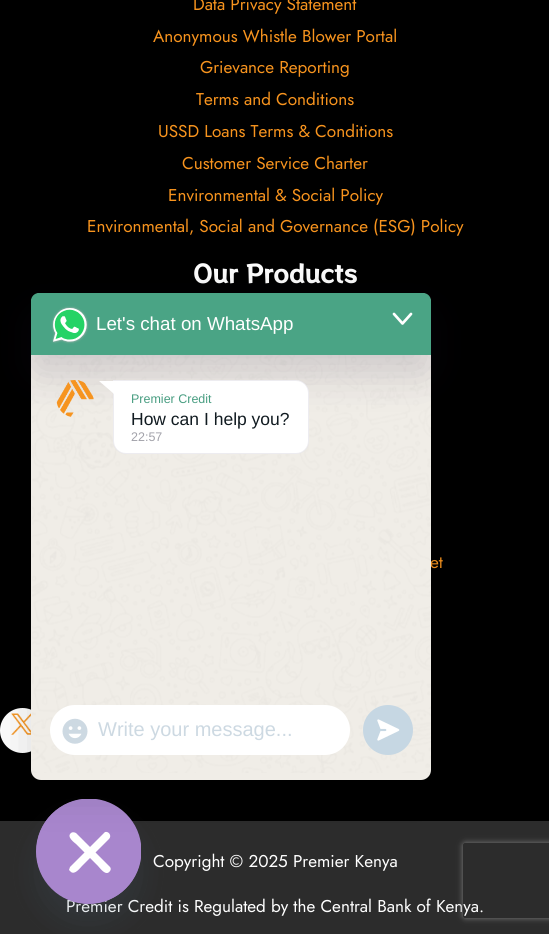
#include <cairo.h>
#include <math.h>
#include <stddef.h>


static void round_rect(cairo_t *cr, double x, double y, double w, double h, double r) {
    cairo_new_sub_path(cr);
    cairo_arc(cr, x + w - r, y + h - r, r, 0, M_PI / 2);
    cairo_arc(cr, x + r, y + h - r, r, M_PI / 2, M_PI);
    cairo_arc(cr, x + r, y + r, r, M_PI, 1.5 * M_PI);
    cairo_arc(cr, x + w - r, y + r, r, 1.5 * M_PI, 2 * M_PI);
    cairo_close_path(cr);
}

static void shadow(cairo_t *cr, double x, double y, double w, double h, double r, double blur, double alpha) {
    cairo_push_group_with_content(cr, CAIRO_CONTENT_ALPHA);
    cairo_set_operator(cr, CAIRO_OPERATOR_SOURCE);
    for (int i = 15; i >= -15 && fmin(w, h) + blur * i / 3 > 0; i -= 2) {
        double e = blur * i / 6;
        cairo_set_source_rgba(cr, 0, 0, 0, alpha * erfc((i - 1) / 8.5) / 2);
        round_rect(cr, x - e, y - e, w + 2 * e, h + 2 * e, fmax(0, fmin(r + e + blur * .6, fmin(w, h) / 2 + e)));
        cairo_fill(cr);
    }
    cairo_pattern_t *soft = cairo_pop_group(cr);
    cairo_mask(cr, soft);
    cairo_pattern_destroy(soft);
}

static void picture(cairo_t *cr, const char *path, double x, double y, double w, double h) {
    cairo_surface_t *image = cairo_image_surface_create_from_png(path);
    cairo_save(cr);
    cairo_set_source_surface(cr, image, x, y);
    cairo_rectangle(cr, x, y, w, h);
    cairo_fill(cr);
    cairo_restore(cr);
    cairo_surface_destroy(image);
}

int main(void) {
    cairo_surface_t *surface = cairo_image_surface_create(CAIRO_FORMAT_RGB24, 549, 934);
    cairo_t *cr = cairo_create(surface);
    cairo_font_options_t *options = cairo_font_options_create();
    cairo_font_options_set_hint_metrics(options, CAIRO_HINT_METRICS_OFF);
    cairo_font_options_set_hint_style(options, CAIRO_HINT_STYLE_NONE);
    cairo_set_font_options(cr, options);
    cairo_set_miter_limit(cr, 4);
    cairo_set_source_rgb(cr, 0, 0, 0);
    cairo_paint(cr);
    cairo_select_font_face(cr, "Jost", CAIRO_FONT_SLANT_NORMAL, CAIRO_FONT_WEIGHT_NORMAL);
    cairo_set_font_size(cr, 17.1);
    cairo_set_source_rgb(cr, 0.969, 0.58, 0.118);
    cairo_move_to(cr, 193, 10);
    cairo_show_text(cr, "Data Privacy Statement");
    cairo_move_to(cr, 153, 42);
    cairo_show_text(cr, "Anonymous Whistle Blower Portal");
    cairo_move_to(cr, 200, 73);
    cairo_show_text(cr, "Grievance Reporting");
    cairo_move_to(cr, 196, 105);
    cairo_show_text(cr, "Terms and Conditions");
    cairo_move_to(cr, 158, 137);
    cairo_show_text(cr, "USSD Loans Terms & Conditions");
    cairo_move_to(cr, 182, 169);
    cairo_show_text(cr, "Customer Service Charter");
    cairo_move_to(cr, 168, 201);
    cairo_show_text(cr, "Environmental & Social Policy");
    cairo_move_to(cr, 87, 232);
    cairo_show_text(cr, "Environmental, Social and Governance (ESG) Policy");
    cairo_select_font_face(cr, "RocknRoll One", CAIRO_FONT_SLANT_NORMAL, CAIRO_FONT_WEIGHT_BOLD);
    cairo_set_font_size(cr, 24);
    cairo_set_source_rgb(cr, 1, 1, 1);
    cairo_move_to(cr, 193, 283);
    cairo_show_text(cr, "Our Products");
    cairo_select_font_face(cr, "Jost", CAIRO_FONT_SLANT_NORMAL, CAIRO_FONT_WEIGHT_NORMAL);
    cairo_set_font_size(cr, 17.1);
    cairo_set_source_rgb(cr, 0.969, 0.58, 0.118);
    cairo_move_to(cr, 430, 568);
    cairo_show_text(cr, "et");
    cairo_set_source_rgb(cr, 1, 1, 1);
    cairo_new_path(cr);
    cairo_arc(cr, 22.5, 730.5, 22.5, 0, 2 * M_PI);
    cairo_fill(cr);
    picture(cr, "img1.png", 11, 713, 20, 22);
    cairo_set_source_rgb(cr, 0.173, 0.173, 0.173);
    cairo_rectangle(cr, 0, 821, 549, 113);
    cairo_fill(cr);
    cairo_set_source_rgb(cr, 1, 1, 1);
    cairo_move_to(cr, 153, 867);
    cairo_show_text(cr, "Copyright © 2025 Premier Kenya");
    cairo_move_to(cr, 66, 912);
    cairo_show_text(cr, "Premier Credit is Regulated by the Central Bank of Kenya.");
    cairo_set_source_rgb(cr, 0.286, 0.408, 0.494);
    shadow(cr, 36, 819, 105, 105, 52.5, 15, 0.16);
    cairo_set_source_rgb(cr, 0.659, 0.525, 0.804);
    cairo_arc(cr, 88.5, 851.5, 52.5, 0, 2 * M_PI);
    cairo_fill(cr);
    cairo_save(cr);
    cairo_rectangle(cr, 36, 799, 105, 105);
    cairo_clip(cr);
    cairo_arc(cr, 89, 851, 52.5, 0, 2 * M_PI);
    cairo_fill(cr);
    cairo_restore(cr);
    cairo_set_source_rgb(cr, 1, 1, 1);
    cairo_new_path(cr);
    cairo_move_to(cr, 76, 833);
    cairo_line_to(cr, 110, 867);
    cairo_curve_to(cr, 111, 868, 111, 870, 110, 871);
    cairo_curve_to(cr, 106, 877, 100, 868, 98, 866);
    cairo_line_to(cr, 76, 844);
    cairo_curve_to(cr, 75, 843, 66, 837, 71, 833);
    cairo_curve_to(cr, 72, 832, 74, 832, 76, 833);
    cairo_close_path(cr);
    cairo_fill(cr);
    cairo_new_path(cr);
    cairo_move_to(cr, 109, 839);
    cairo_line_to(cr, 82, 866);
    cairo_curve_to(cr, 80, 868, 75, 875, 71, 872);
    cairo_line_to(cr, 69, 870);
    cairo_line_to(cr, 70, 867);
    cairo_line_to(cr, 105, 832);
    cairo_curve_to(cr, 109, 831, 112, 836, 109, 839);
    cairo_close_path(cr);
    cairo_fill(cr);
    cairo_set_source_rgb(cr, 0, 0, 0);
    shadow(cr, 31, 299, 400, 487, 8, 25, 0.16);
    cairo_set_source_rgb(cr, 0.941, 0.929, 0.906);
    round_rect(cr, 31, 293, 400, 487, 10);
    cairo_fill(cr);
    picture(cr, "img3.png", 32, 355, 399, 418);
    cairo_set_source_rgb(cr, 0.102, 0.055, 0.208);
    shadow(cr, 31, 313, 400, 62, 8, 20, 0.16);
    cairo_set_source_rgb(cr, 0.29, 0.643, 0.522);
    cairo_new_path(cr);
    cairo_move_to(cr, 39, 293);
    cairo_line_to(cr, 423, 293);
    cairo_curve_to(cr, 427.5, 293, 431, 296.5, 431, 301);
    cairo_line_to(cr, 431, 355);
    cairo_line_to(cr, 31, 355);
    cairo_line_to(cr, 31, 301);
    cairo_curve_to(cr, 31, 296.5, 34.5, 293, 39, 293);
    cairo_close_path(cr);
    cairo_fill(cr);
    picture(cr, "img2.png", 51, 306, 38, 38);
    cairo_select_font_face(cr, "Liberation Sans", CAIRO_FONT_SLANT_NORMAL, CAIRO_FONT_WEIGHT_NORMAL);
    cairo_set_font_size(cr, 18.75);
    cairo_set_source_rgb(cr, 1, 1, 1);
    cairo_move_to(cr, 96, 330);
    cairo_show_text(cr, "Let's chat on WhatsApp");
    cairo_new_path(cr);
    cairo_move_to(cr, 394, 314);
    cairo_line_to(cr, 402.5, 323.5);
    cairo_line_to(cr, 411, 314);
    cairo_set_line_width(cr, 2.7);
    cairo_set_line_cap(cr, CAIRO_LINE_CAP_ROUND);
    cairo_set_line_join(cr, CAIRO_LINE_JOIN_ROUND);
    cairo_stroke(cr);
    picture(cr, "img4.png", 56, 380, 38, 37);
    cairo_new_path(cr);
    cairo_move_to(cr, 113, 380);
    cairo_line_to(cr, 296, 380);
    cairo_curve_to(cr, 303, 380, 309, 386, 309, 393);
    cairo_line_to(cr, 309, 441);
    cairo_curve_to(cr, 309, 448, 303, 454, 296, 454);
    cairo_line_to(cr, 126, 454);
    cairo_curve_to(cr, 119, 454, 113, 448, 113, 441);
    cairo_close_path(cr);
    cairo_fill(cr);
    cairo_new_path(cr);
    cairo_move_to(cr, 113.5, 380.5);
    cairo_line_to(cr, 296, 380.5);
    cairo_curve_to(cr, 303, 380.5, 308.5, 386, 308.5, 393);
    cairo_line_to(cr, 308.5, 441);
    cairo_curve_to(cr, 308.5, 448, 303, 453.5, 296, 453.5);
    cairo_line_to(cr, 126, 453.5);
    cairo_curve_to(cr, 119, 453.5, 113.5, 448, 113.5, 441);
    cairo_close_path(cr);
    cairo_set_source_rgba(cr, 0.133, 0.067, 0.278, 0.08);
    cairo_set_line_width(cr, 1);
    cairo_set_line_cap(cr, CAIRO_LINE_CAP_BUTT);
    cairo_set_line_join(cr, CAIRO_LINE_JOIN_MITER);
    cairo_stroke(cr);
    cairo_set_source_rgb(cr, 1, 1, 1);
    cairo_new_path(cr);
    cairo_move_to(cr, 114, 381);
    cairo_line_to(cr, 114, 394);
    cairo_line_to(cr, 99, 381);
    cairo_close_path(cr);
    cairo_fill(cr);
    cairo_set_font_size(cr, 12.5);
    cairo_set_source_rgb(cr, 0.282, 0.616, 0.506);
    cairo_move_to(cr, 131, 403);
    cairo_show_text(cr, "Premier Credit");
    cairo_set_font_size(cr, 17.5);
    cairo_set_source_rgb(cr, 0.067, 0.106, 0.129);
    cairo_move_to(cr, 131, 425);
    cairo_show_text(cr, "How can I help you?");
    cairo_set_font_size(cr, 12.5);
    cairo_set_source_rgb(cr, 0.631, 0.631, 0.663);
    cairo_move_to(cr, 131, 441);
    cairo_show_text(cr, "22:57");
    cairo_set_source_rgb(cr, 1, 1, 1);
    round_rect(cr, 50, 705, 300, 50, 25);
    cairo_fill(cr);
    picture(cr, "img5.png", 62, 718, 26, 26);
    cairo_set_font_size(cr, 20);
    cairo_set_source_rgb(cr, 0.804, 0.851, 0.886);
    cairo_move_to(cr, 98, 736);
    cairo_show_text(cr, "Write your message...");
    cairo_set_source_rgb(cr, 0.776, 0.843, 0.89);
    cairo_new_path(cr);
    cairo_arc(cr, 388, 730, 25, 0, 2 * M_PI);
    cairo_fill(cr);
    picture(cr, "img6.png", 377, 719, 23, 22);
    cairo_save(cr);
    cairo_set_fill_rule(cr, CAIRO_FILL_RULE_EVEN_ODD);
    cairo_new_path(cr);
    cairo_move_to(cr, 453, 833);
    cairo_line_to(cr, 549, 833);
    cairo_line_to(cr, 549, 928);
    cairo_line_to(cr, 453, 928);
    cairo_close_path(cr);
    cairo_move_to(cr, 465.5, 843);
    cairo_line_to(cr, 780.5, 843);
    cairo_curve_to(cr, 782, 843, 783, 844, 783, 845.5);
    cairo_line_to(cr, 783, 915.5);
    cairo_curve_to(cr, 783, 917, 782, 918, 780.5, 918);
    cairo_line_to(cr, 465.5, 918);
    cairo_curve_to(cr, 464, 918, 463, 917, 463, 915.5);
    cairo_line_to(cr, 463, 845.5);
    cairo_curve_to(cr, 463, 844, 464, 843, 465.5, 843);
    cairo_close_path(cr);
    cairo_clip(cr);
    cairo_set_source_rgb(cr, 0.502, 0.502, 0.502);
    shadow(cr, 463, 843, 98, 75, 2.5, 3, 1);
    cairo_restore(cr);
    cairo_surface_write_to_png(surface, "page.png");
    cairo_font_options_destroy(options);
    cairo_destroy(cr);
    cairo_surface_destroy(surface);
    return 0;
}
